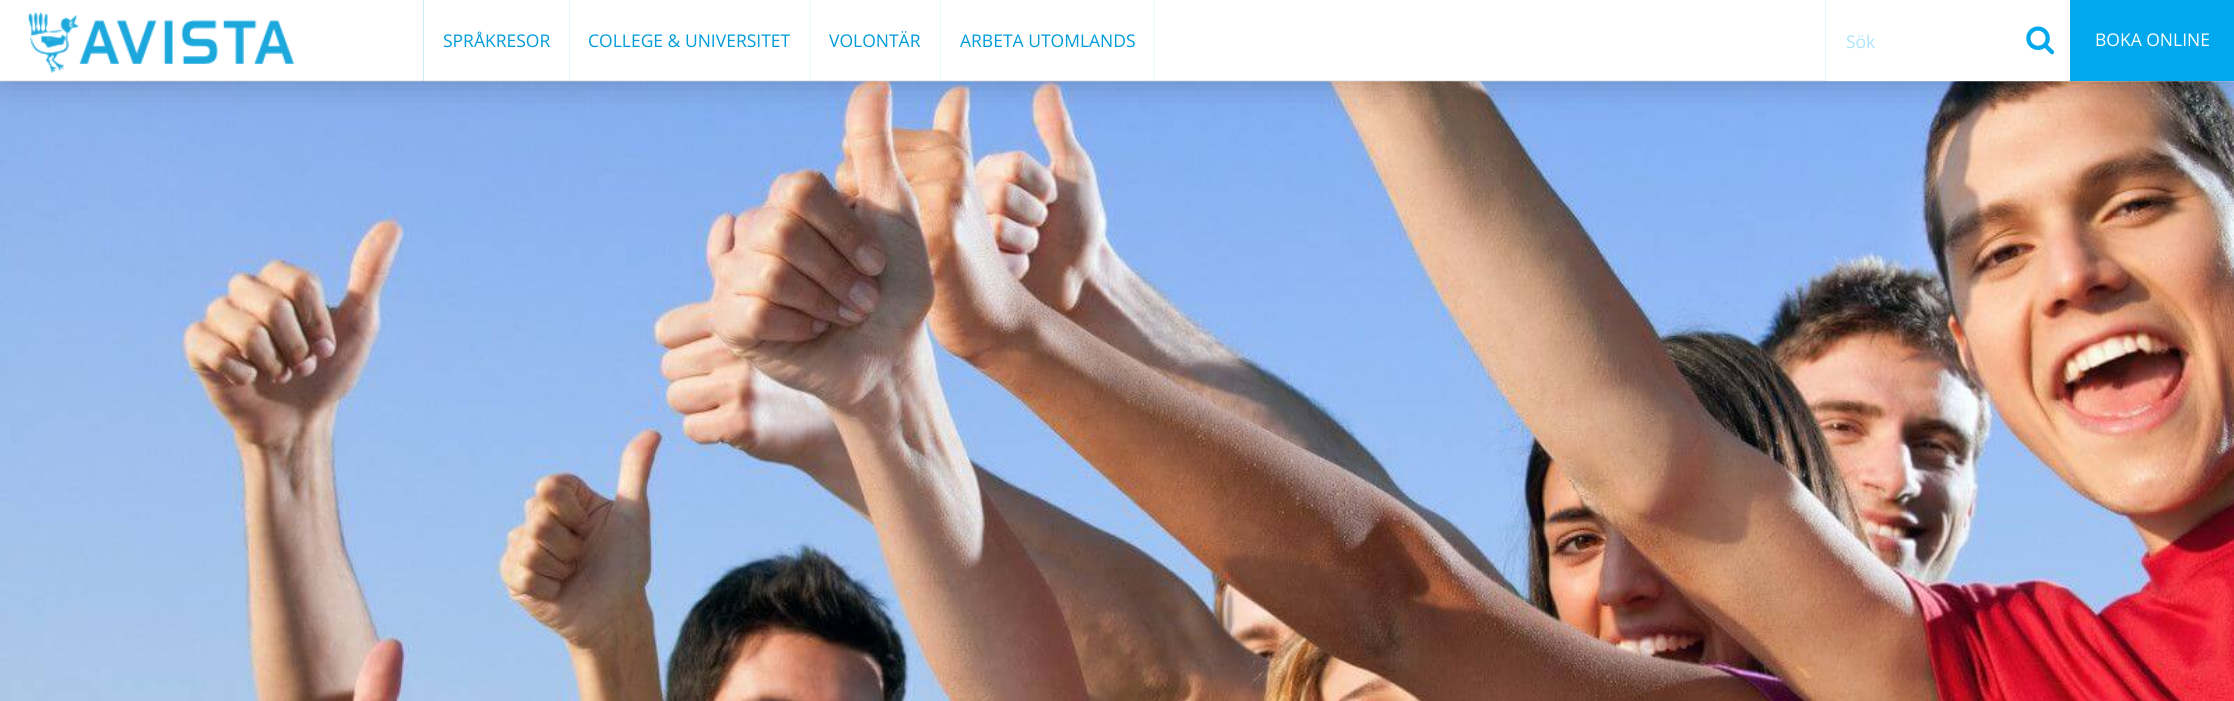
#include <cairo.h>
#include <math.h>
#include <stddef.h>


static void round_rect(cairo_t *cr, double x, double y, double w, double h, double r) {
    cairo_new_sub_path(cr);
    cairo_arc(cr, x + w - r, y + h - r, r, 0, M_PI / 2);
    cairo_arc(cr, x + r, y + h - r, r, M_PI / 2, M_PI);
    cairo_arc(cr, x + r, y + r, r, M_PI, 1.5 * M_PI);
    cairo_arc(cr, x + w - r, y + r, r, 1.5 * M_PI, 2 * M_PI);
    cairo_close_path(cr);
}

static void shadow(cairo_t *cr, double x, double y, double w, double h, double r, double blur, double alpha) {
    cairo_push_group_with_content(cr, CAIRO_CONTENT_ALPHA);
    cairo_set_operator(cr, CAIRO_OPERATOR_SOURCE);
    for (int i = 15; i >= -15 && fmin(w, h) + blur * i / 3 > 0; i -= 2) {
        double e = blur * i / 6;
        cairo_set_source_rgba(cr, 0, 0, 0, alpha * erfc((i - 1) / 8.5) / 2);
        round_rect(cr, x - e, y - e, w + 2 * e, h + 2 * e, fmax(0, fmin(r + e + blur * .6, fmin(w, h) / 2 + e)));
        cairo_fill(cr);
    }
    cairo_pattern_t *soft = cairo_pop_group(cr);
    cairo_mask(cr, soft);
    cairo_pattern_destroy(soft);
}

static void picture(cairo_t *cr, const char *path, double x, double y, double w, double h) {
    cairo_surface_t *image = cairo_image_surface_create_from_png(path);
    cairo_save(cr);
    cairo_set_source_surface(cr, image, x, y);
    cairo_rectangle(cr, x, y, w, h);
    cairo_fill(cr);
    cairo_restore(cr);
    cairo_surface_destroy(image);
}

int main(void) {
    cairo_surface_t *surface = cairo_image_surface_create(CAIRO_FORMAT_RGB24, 2234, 701);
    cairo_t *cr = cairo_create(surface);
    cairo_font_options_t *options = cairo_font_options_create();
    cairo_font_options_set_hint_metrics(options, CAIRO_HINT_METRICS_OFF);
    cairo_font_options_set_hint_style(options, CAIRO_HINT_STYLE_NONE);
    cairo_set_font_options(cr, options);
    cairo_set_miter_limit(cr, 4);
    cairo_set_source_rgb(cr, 1, 1, 1);
    cairo_paint(cr);
    picture(cr, "img3.png", 0, 81, 2234, 620);
    cairo_set_source_rgb(cr, 0, 0, 0);
    shadow(cr, 6, 6, 2223, 69, 0, 19, 0.3);
    cairo_set_source_rgb(cr, 1, 1, 1);
    cairo_rectangle(cr, 0, 0, 2070, 80);
    cairo_fill(cr);
    cairo_set_source_rgb(cr, 0.902, 0.965, 0.992);
    cairo_rectangle(cr, 1154, 0, 1, 81);
    cairo_fill(cr);
    cairo_rectangle(cr, 940, 0, 1, 81);
    cairo_fill(cr);
    cairo_rectangle(cr, 810, 0, 1, 81);
    cairo_fill(cr);
    cairo_set_source_rgb(cr, 0.8, 0.933, 0.984);
    cairo_rectangle(cr, 423, 0, 1, 81);
    cairo_fill(cr);
    cairo_set_source_rgb(cr, 0.902, 0.965, 0.992);
    cairo_rectangle(cr, 569, 0, 1, 81);
    cairo_fill(cr);
    cairo_set_source_rgb(cr, 0.933, 0.933, 0.933);
    cairo_rectangle(cr, 0, 80, 2070, 1);
    cairo_fill(cr);
    cairo_set_source_rgb(cr, 0.839, 0.906, 0.933);
    cairo_rectangle(cr, 1154, 80, 1, 1);
    cairo_fill(cr);
    cairo_rectangle(cr, 940, 80, 1, 1);
    cairo_fill(cr);
    cairo_rectangle(cr, 810, 80, 1, 1);
    cairo_fill(cr);
    cairo_set_source_rgb(cr, 0.745, 0.878, 0.933);
    cairo_rectangle(cr, 423, 80, 1, 1);
    cairo_fill(cr);
    cairo_set_source_rgb(cr, 0.839, 0.906, 0.933);
    cairo_rectangle(cr, 569, 80, 1, 1);
    cairo_fill(cr);
    picture(cr, "img1.png", 28, 12, 266, 61);
    cairo_select_font_face(cr, "Open Sans", CAIRO_FONT_SLANT_NORMAL, CAIRO_FONT_WEIGHT_NORMAL);
    cairo_set_font_size(cr, 17.5);
    cairo_set_source_rgb(cr, 0, 0.608, 0.859);
    cairo_move_to(cr, 443, 47);
    cairo_show_text(cr, "SPRÅKRESOR");
    cairo_move_to(cr, 588, 47);
    cairo_show_text(cr, "COLLEGE & UNIVERSITET");
    cairo_move_to(cr, 829, 47);
    cairo_show_text(cr, "VOLONTÄR");
    cairo_move_to(cr, 960, 47);
    cairo_show_text(cr, "ARBETA UTOMLANDS");
    cairo_set_source_rgb(cr, 1, 1, 1);
    cairo_rectangle(cr, 1826, 80, 240, 1);
    cairo_fill(cr);
    cairo_set_source_rgb(cr, 0.902, 0.965, 0.992);
    cairo_rectangle(cr, 1825, 0, 1, 81);
    cairo_fill(cr);
    cairo_set_source_rgb(cr, 0.675, 0.89, 0.976);
    cairo_move_to(cr, 1846, 48);
    cairo_show_text(cr, "Sök");
    picture(cr, "img2.png", 2026, 26, 29, 29);
    cairo_set_source_rgb(cr, 0, 0.659, 0.929);
    cairo_rectangle(cr, 2070, 0, 164, 81);
    cairo_fill(cr);
    cairo_set_source_rgb(cr, 1, 1, 1);
    cairo_move_to(cr, 2095, 46);
    cairo_show_text(cr, "BOKA ONLINE");
    cairo_surface_write_to_png(surface, "page.png");
    cairo_font_options_destroy(options);
    cairo_destroy(cr);
    cairo_surface_destroy(surface);
    return 0;
}
